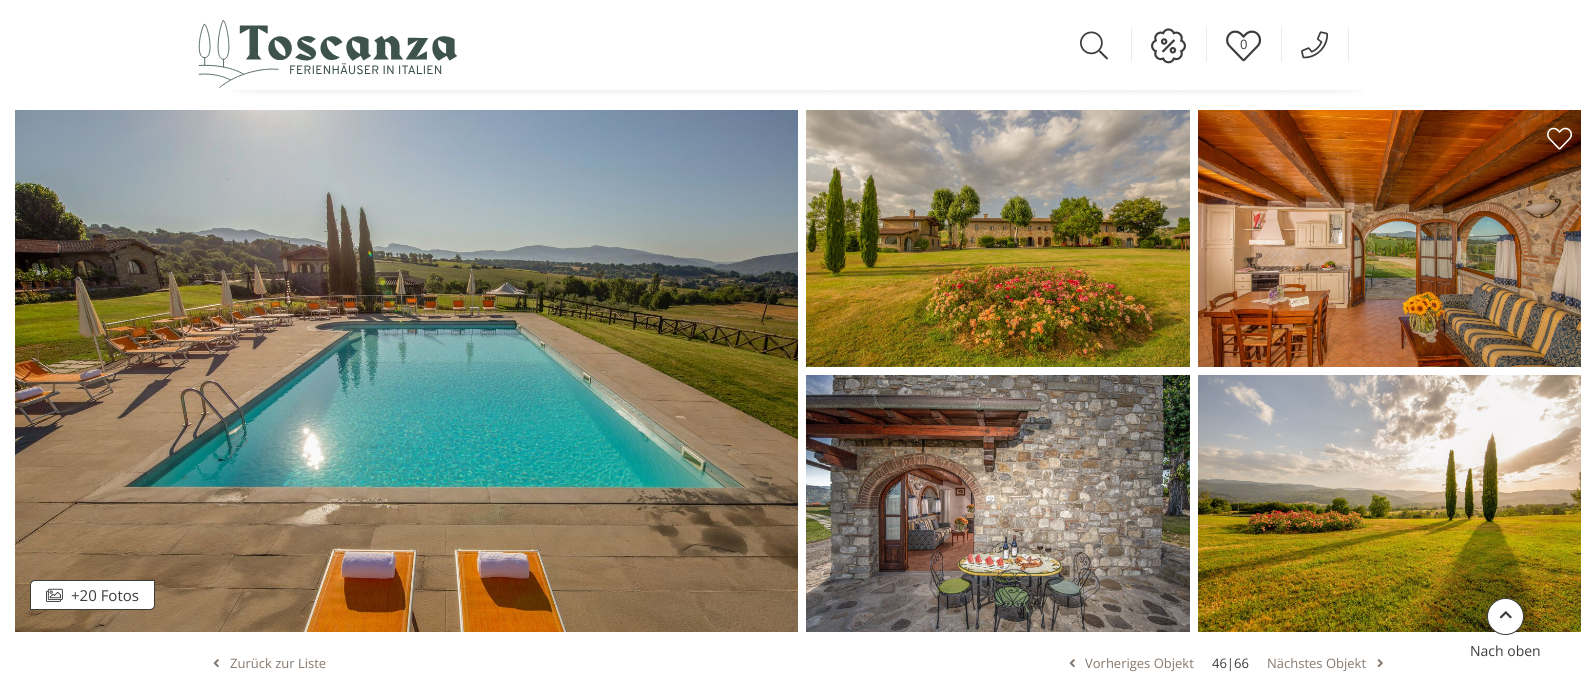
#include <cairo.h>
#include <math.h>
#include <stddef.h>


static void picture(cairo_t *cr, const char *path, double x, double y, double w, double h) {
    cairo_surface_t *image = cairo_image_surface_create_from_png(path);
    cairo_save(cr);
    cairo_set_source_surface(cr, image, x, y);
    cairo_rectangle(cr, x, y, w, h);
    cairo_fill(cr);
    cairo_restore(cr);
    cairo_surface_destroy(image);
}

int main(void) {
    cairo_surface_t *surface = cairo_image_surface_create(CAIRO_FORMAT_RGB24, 1596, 681);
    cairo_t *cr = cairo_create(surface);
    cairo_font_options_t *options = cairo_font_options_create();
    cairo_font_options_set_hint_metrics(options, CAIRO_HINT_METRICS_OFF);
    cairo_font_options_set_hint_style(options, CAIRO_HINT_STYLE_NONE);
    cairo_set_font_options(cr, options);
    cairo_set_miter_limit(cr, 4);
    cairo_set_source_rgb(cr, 1, 1, 1);
    cairo_paint(cr);
    picture(cr, "img1.png", 198, 20, 259, 68);
    picture(cr, "img2.png", 1080, 31, 28, 29);
    cairo_set_source_rgb(cr, 0.925, 0.925, 0.925);
    cairo_rectangle(cr, 1131, 27, 1, 35);
    cairo_fill(cr);
    picture(cr, "img3.png", 1151, 28, 35, 36);
    cairo_rectangle(cr, 1206, 27, 1, 35);
    cairo_fill(cr);
    cairo_select_font_face(cr, "Open Sans", CAIRO_FONT_SLANT_NORMAL, CAIRO_FONT_WEIGHT_NORMAL);
    cairo_set_font_size(cr, 13);
    cairo_set_source_rgb(cr, 0.235, 0.235, 0.231);
    cairo_move_to(cr, 1240, 49);
    cairo_show_text(cr, "0");
    picture(cr, "img4.png", 1226, 30, 36, 32);
    cairo_set_source_rgb(cr, 0.925, 0.925, 0.925);
    cairo_rectangle(cr, 1281, 27, 1, 35);
    cairo_fill(cr);
    picture(cr, "img5.png", 1301, 31, 28, 28);
    cairo_rectangle(cr, 1348, 27, 1, 35);
    cairo_fill(cr);
    picture(cr, "img6.png", 232, 90, 1131, 5);
    picture(cr, "img11.png", 1198, 110, 383, 257);
    picture(cr, "img7.png", 1547, 127, 26, 23);
    picture(cr, "img8.png", 15, 110, 783, 522);
    picture(cr, "img9.png", 806, 110, 384, 257);
    picture(cr, "img10.png", 806, 375, 384, 257);
    picture(cr, "img12.png", 1198, 375, 383, 257);
    cairo_set_source_rgb(cr, 1, 1, 1);
    cairo_new_path(cr);
    cairo_move_to(cr, 35, 580.5);
    cairo_line_to(cr, 154.5, 580.5);
    cairo_line_to(cr, 154.5, 605);
    cairo_curve_to(cr, 154.5, 607.5, 152.5, 609.5, 150, 609.5);
    cairo_line_to(cr, 30.5, 609.5);
    cairo_line_to(cr, 30.5, 585);
    cairo_curve_to(cr, 30.5, 582.5, 32.5, 580.5, 35, 580.5);
    cairo_close_path(cr);
    cairo_fill_preserve(cr);
    cairo_set_source_rgb(cr, 0.235, 0.235, 0.231);
    cairo_set_line_width(cr, 1);
    cairo_stroke(cr);
    picture(cr, "img13.png", 46, 588, 17, 14);
    cairo_set_font_size(cr, 15);
    cairo_move_to(cr, 71, 601);
    cairo_show_text(cr, "+20 Fotos");
    picture(cr, "img14.png", 213, 659, 6, 9);
    cairo_set_font_size(cr, 13);
    cairo_set_source_rgb(cr, 0.522, 0.471, 0.431);
    cairo_move_to(cr, 230, 668);
    cairo_show_text(cr, "Zurück zur Liste");
    picture(cr, "img14.png", 1069, 659, 6, 9);
    cairo_move_to(cr, 1085, 668);
    cairo_show_text(cr, "Vorheriges Objekt");
    cairo_set_source_rgb(cr, 0.235, 0.235, 0.231);
    cairo_move_to(cr, 1212, 668);
    cairo_show_text(cr, "46|66");
    cairo_set_source_rgb(cr, 0.522, 0.471, 0.431);
    cairo_move_to(cr, 1267, 668);
    cairo_show_text(cr, "Nächstes Objekt");
    picture(cr, "img15.png", 1377, 659, 6, 9);
    cairo_set_source_rgb(cr, 1, 1, 1);
    cairo_arc(cr, 1505.5, 616.5, 18, 0, 2 * M_PI);
    cairo_fill_preserve(cr);
    cairo_set_source_rgb(cr, 0.235, 0.235, 0.231);
    cairo_stroke(cr);
    picture(cr, "img16.png", 1499, 611, 13, 8);
    cairo_set_font_size(cr, 14);
    cairo_move_to(cr, 1470, 656);
    cairo_show_text(cr, "Nach oben");
    cairo_surface_write_to_png(surface, "page.png");
    cairo_font_options_destroy(options);
    cairo_destroy(cr);
    cairo_surface_destroy(surface);
    return 0;
}
